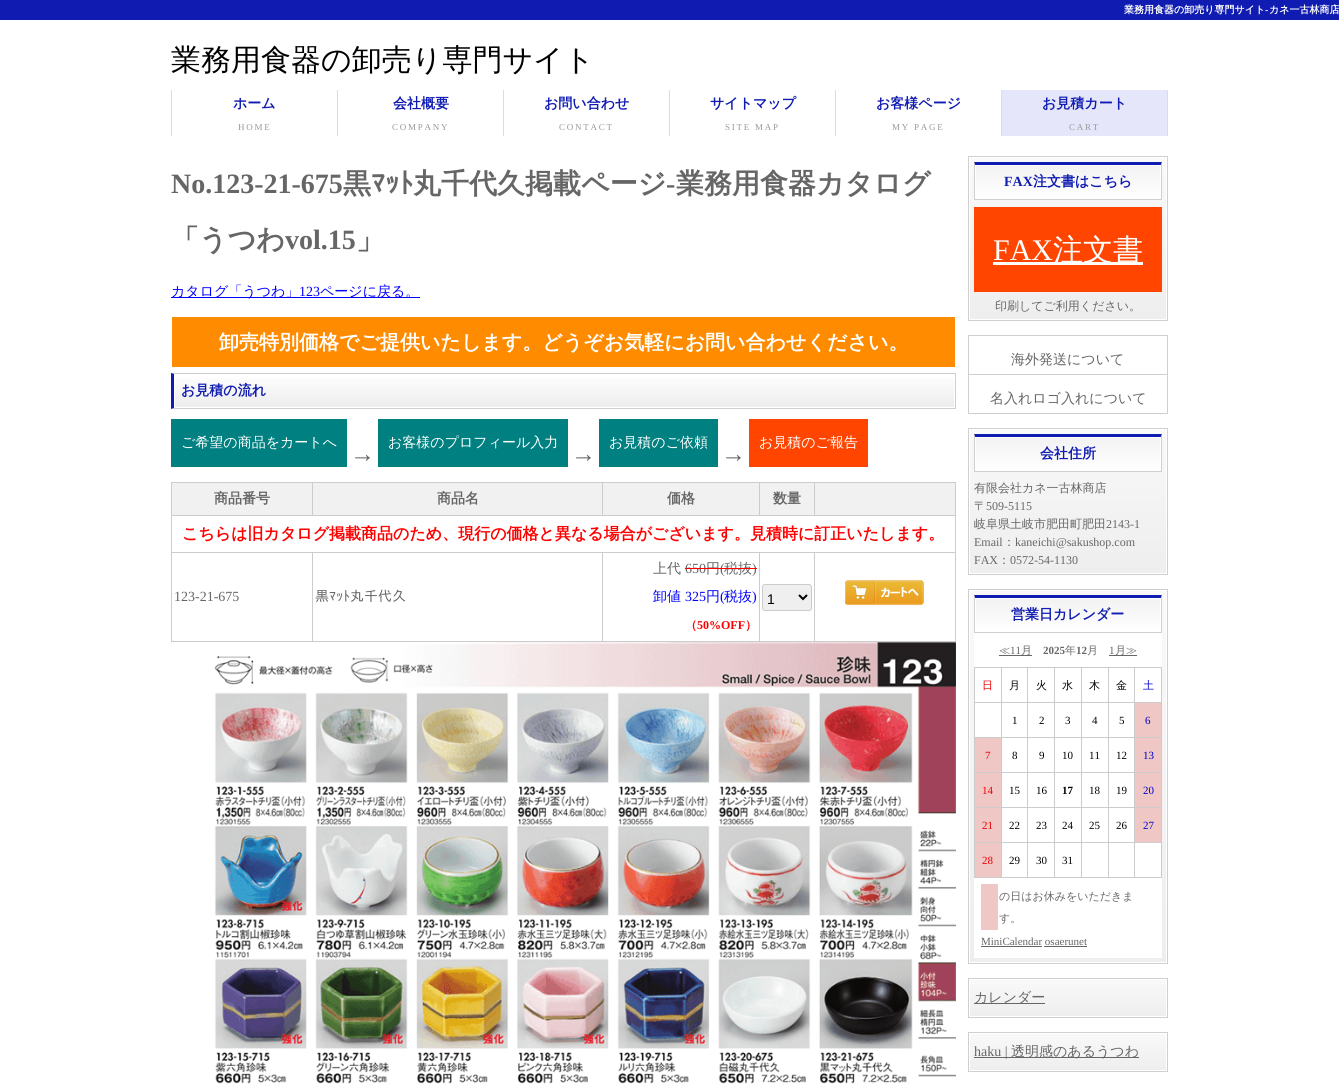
#include <cairo.h>
#include <math.h>
#include <stddef.h>


static void spaced_text(cairo_t *cr, double x, double y, const char *s, double letter, double word) {
    cairo_move_to(cr, x, y);
    while (*s) {
        char ch[5] = {0};
        int n = 0;
        do ch[n++] = *s++; while ((*s & 0xC0) == 0x80);
        cairo_show_text(cr, ch);
        cairo_rel_move_to(cr, letter + word * (*ch == ' '), 0);
    }
}

static void round_rect(cairo_t *cr, double x, double y, double w, double h, double r) {
    cairo_new_sub_path(cr);
    cairo_arc(cr, x + w - r, y + h - r, r, 0, M_PI / 2);
    cairo_arc(cr, x + r, y + h - r, r, M_PI / 2, M_PI);
    cairo_arc(cr, x + r, y + r, r, M_PI, 1.5 * M_PI);
    cairo_arc(cr, x + w - r, y + r, r, 1.5 * M_PI, 2 * M_PI);
    cairo_close_path(cr);
}

static void picture(cairo_t *cr, const char *path, double x, double y, double w, double h) {
    cairo_surface_t *image = cairo_image_surface_create_from_png(path);
    cairo_save(cr);
    cairo_set_source_surface(cr, image, x, y);
    cairo_rectangle(cr, x, y, w, h);
    cairo_fill(cr);
    cairo_restore(cr);
    cairo_surface_destroy(image);
}

int main(void) {
    cairo_surface_t *surface = cairo_image_surface_create(CAIRO_FORMAT_RGB24, 1339, 1084);
    cairo_t *cr = cairo_create(surface);
    cairo_font_options_t *options = cairo_font_options_create();
    cairo_font_options_set_hint_metrics(options, CAIRO_HINT_METRICS_OFF);
    cairo_font_options_set_hint_style(options, CAIRO_HINT_STYLE_NONE);
    cairo_set_font_options(cr, options);
    cairo_set_miter_limit(cr, 4);
    cairo_pattern_t *gradient;
    cairo_set_source_rgb(cr, 1, 1, 1);
    cairo_paint(cr);
    cairo_set_source_rgb(cr, 0.059, 0.106, 0.694);
    cairo_rectangle(cr, 0, 0, 1339, 20);
    cairo_fill(cr);
    cairo_select_font_face(cr, "WenQuanYi Zen Hei", CAIRO_FONT_SLANT_NORMAL, CAIRO_FONT_WEIGHT_BOLD);
    cairo_set_font_size(cr, 10);
    cairo_set_source_rgb(cr, 1, 1, 1);
    cairo_move_to(cr, 1124, 13);
    cairo_show_text(cr, "業務用食器の卸売り専門サイト");
    cairo_select_font_face(cr, "Liberation Serif", CAIRO_FONT_SLANT_NORMAL, CAIRO_FONT_WEIGHT_BOLD);
    cairo_move_to(cr, 1265, 13);
    cairo_show_text(cr, "-");
    cairo_select_font_face(cr, "WenQuanYi Zen Hei", CAIRO_FONT_SLANT_NORMAL, CAIRO_FONT_WEIGHT_BOLD);
    cairo_move_to(cr, 1269, 13);
    cairo_show_text(cr, "カネ一古林商店");
    cairo_select_font_face(cr, "WenQuanYi Zen Hei Medium", CAIRO_FONT_SLANT_NORMAL, CAIRO_FONT_WEIGHT_NORMAL);
    cairo_set_font_size(cr, 30);
    cairo_set_source_rgb(cr, 0, 0, 0);
    cairo_move_to(cr, 171, 70);
    cairo_show_text(cr, "業務用食器の卸売り専門サイト");
    cairo_set_source_rgb(cr, 0.863, 0.863, 0.863);
    cairo_rectangle(cr, 337, 90, 1, 46);
    cairo_fill(cr);
    cairo_rectangle(cr, 171, 90, 1, 46);
    cairo_fill(cr);
    cairo_select_font_face(cr, "WenQuanYi Zen Hei", CAIRO_FONT_SLANT_NORMAL, CAIRO_FONT_WEIGHT_BOLD);
    cairo_set_font_size(cr, 14);
    cairo_set_source_rgb(cr, 0.059, 0.106, 0.694);
    cairo_move_to(cr, 233, 108);
    cairo_show_text(cr, "ホーム");
    cairo_select_font_face(cr, "Liberation Serif", CAIRO_FONT_SLANT_NORMAL, CAIRO_FONT_WEIGHT_NORMAL);
    cairo_set_font_size(cr, 9);
    cairo_set_source_rgb(cr, 0.6, 0.6, 0.6);
    spaced_text(cr, 238, 130, "HOME", 1.75, 0);
    cairo_set_source_rgb(cr, 0.863, 0.863, 0.863);
    cairo_rectangle(cr, 503, 90, 1, 46);
    cairo_fill(cr);
    cairo_select_font_face(cr, "WenQuanYi Zen Hei", CAIRO_FONT_SLANT_NORMAL, CAIRO_FONT_WEIGHT_BOLD);
    cairo_set_font_size(cr, 14);
    cairo_set_source_rgb(cr, 0.059, 0.106, 0.694);
    cairo_move_to(cr, 393, 108);
    cairo_show_text(cr, "会社概要");
    cairo_select_font_face(cr, "Liberation Serif", CAIRO_FONT_SLANT_NORMAL, CAIRO_FONT_WEIGHT_NORMAL);
    cairo_set_font_size(cr, 9);
    cairo_set_source_rgb(cr, 0.6, 0.6, 0.6);
    spaced_text(cr, 392, 130, "COMPANY", 1.75, 0);
    cairo_set_source_rgb(cr, 0.863, 0.863, 0.863);
    cairo_rectangle(cr, 669, 90, 1, 46);
    cairo_fill(cr);
    cairo_select_font_face(cr, "WenQuanYi Zen Hei", CAIRO_FONT_SLANT_NORMAL, CAIRO_FONT_WEIGHT_BOLD);
    cairo_set_font_size(cr, 14);
    cairo_set_source_rgb(cr, 0.059, 0.106, 0.694);
    cairo_move_to(cr, 544, 108);
    cairo_show_text(cr, "お問い合わせ");
    cairo_select_font_face(cr, "Liberation Serif", CAIRO_FONT_SLANT_NORMAL, CAIRO_FONT_WEIGHT_NORMAL);
    cairo_set_font_size(cr, 9);
    cairo_set_source_rgb(cr, 0.6, 0.6, 0.6);
    spaced_text(cr, 559, 130, "CONTACT", 1.75, 0);
    cairo_set_source_rgb(cr, 0.863, 0.863, 0.863);
    cairo_rectangle(cr, 835, 90, 1, 46);
    cairo_fill(cr);
    cairo_select_font_face(cr, "WenQuanYi Zen Hei", CAIRO_FONT_SLANT_NORMAL, CAIRO_FONT_WEIGHT_BOLD);
    cairo_set_font_size(cr, 14);
    cairo_set_source_rgb(cr, 0.059, 0.106, 0.694);
    cairo_move_to(cr, 710, 108);
    cairo_show_text(cr, "サイトマップ");
    cairo_select_font_face(cr, "Liberation Serif", CAIRO_FONT_SLANT_NORMAL, CAIRO_FONT_WEIGHT_NORMAL);
    cairo_set_font_size(cr, 9);
    cairo_set_source_rgb(cr, 0.6, 0.6, 0.6);
    spaced_text(cr, 725, 130, "SITE MAP", 1.75, 0);
    cairo_set_source_rgb(cr, 0.863, 0.863, 0.863);
    cairo_rectangle(cr, 1001, 90, 1, 46);
    cairo_fill(cr);
    cairo_select_font_face(cr, "WenQuanYi Zen Hei", CAIRO_FONT_SLANT_NORMAL, CAIRO_FONT_WEIGHT_BOLD);
    cairo_set_font_size(cr, 14);
    cairo_set_source_rgb(cr, 0.059, 0.106, 0.694);
    cairo_move_to(cr, 876, 108);
    cairo_show_text(cr, "お客様ページ");
    cairo_select_font_face(cr, "Liberation Serif", CAIRO_FONT_SLANT_NORMAL, CAIRO_FONT_WEIGHT_NORMAL);
    cairo_set_font_size(cr, 9);
    cairo_set_source_rgb(cr, 0.6, 0.6, 0.6);
    spaced_text(cr, 892, 130, "MY PAGE", 1.75, 0);
    cairo_set_source_rgb(cr, 0.902, 0.902, 0.98);
    cairo_rectangle(cr, 1002, 90, 165, 46);
    cairo_fill(cr);
    cairo_set_source_rgb(cr, 0.863, 0.863, 0.863);
    cairo_rectangle(cr, 1167, 90, 1, 46);
    cairo_fill(cr);
    cairo_select_font_face(cr, "WenQuanYi Zen Hei", CAIRO_FONT_SLANT_NORMAL, CAIRO_FONT_WEIGHT_BOLD);
    cairo_set_font_size(cr, 14);
    cairo_set_source_rgb(cr, 0.059, 0.106, 0.694);
    cairo_move_to(cr, 1042, 108);
    cairo_show_text(cr, "お見積カート");
    cairo_select_font_face(cr, "Liberation Serif", CAIRO_FONT_SLANT_NORMAL, CAIRO_FONT_WEIGHT_NORMAL);
    cairo_set_font_size(cr, 9);
    cairo_set_source_rgb(cr, 0.6, 0.6, 0.6);
    spaced_text(cr, 1069, 130, "CART", 1.75, 0);
    cairo_select_font_face(cr, "Liberation Serif", CAIRO_FONT_SLANT_NORMAL, CAIRO_FONT_WEIGHT_BOLD);
    cairo_set_font_size(cr, 28);
    cairo_set_source_rgb(cr, 0.4, 0.4, 0.4);
    cairo_move_to(cr, 171, 193);
    cairo_show_text(cr, "No.123-21-675");
    cairo_select_font_face(cr, "WenQuanYi Zen Hei", CAIRO_FONT_SLANT_NORMAL, CAIRO_FONT_WEIGHT_BOLD);
    cairo_move_to(cr, 343, 193);
    cairo_show_text(cr, "黒");
    cairo_select_font_face(cr, "IPAPGothic", CAIRO_FONT_SLANT_NORMAL, CAIRO_FONT_WEIGHT_BOLD);
    cairo_move_to(cr, 371, 193);
    cairo_show_text(cr, "ﾏｯﾄ");
    cairo_select_font_face(cr, "WenQuanYi Zen Hei", CAIRO_FONT_SLANT_NORMAL, CAIRO_FONT_WEIGHT_BOLD);
    cairo_move_to(cr, 413, 193);
    cairo_show_text(cr, "丸千代久掲載ページ");
    cairo_select_font_face(cr, "Liberation Serif", CAIRO_FONT_SLANT_NORMAL, CAIRO_FONT_WEIGHT_BOLD);
    cairo_move_to(cr, 666, 193);
    cairo_show_text(cr, "-");
    cairo_select_font_face(cr, "WenQuanYi Zen Hei", CAIRO_FONT_SLANT_NORMAL, CAIRO_FONT_WEIGHT_BOLD);
    cairo_move_to(cr, 676, 193);
    cairo_show_text(cr, "業務用食器カタログ");
    cairo_move_to(cr, 171, 249);
    cairo_show_text(cr, "「うつわ");
    cairo_select_font_face(cr, "Liberation Serif", CAIRO_FONT_SLANT_NORMAL, CAIRO_FONT_WEIGHT_BOLD);
    cairo_move_to(cr, 285, 249);
    cairo_show_text(cr, "vol.15");
    cairo_select_font_face(cr, "WenQuanYi Zen Hei", CAIRO_FONT_SLANT_NORMAL, CAIRO_FONT_WEIGHT_BOLD);
    cairo_move_to(cr, 356, 249);
    cairo_show_text(cr, "」");
    cairo_set_source_rgb(cr, 0, 0, 1);
    cairo_rectangle(cr, 171, 297, 249, 1);
    cairo_fill(cr);
    cairo_select_font_face(cr, "WenQuanYi Zen Hei Medium", CAIRO_FONT_SLANT_NORMAL, CAIRO_FONT_WEIGHT_NORMAL);
    cairo_set_font_size(cr, 14);
    cairo_move_to(cr, 171, 296);
    cairo_show_text(cr, "カタログ「うつわ」");
    cairo_select_font_face(cr, "Liberation Serif", CAIRO_FONT_SLANT_NORMAL, CAIRO_FONT_WEIGHT_NORMAL);
    cairo_move_to(cr, 299, 296);
    cairo_show_text(cr, "123");
    cairo_select_font_face(cr, "WenQuanYi Zen Hei Medium", CAIRO_FONT_SLANT_NORMAL, CAIRO_FONT_WEIGHT_NORMAL);
    cairo_move_to(cr, 320, 296);
    cairo_show_text(cr, "ページに戻る。");
    cairo_set_source_rgb(cr, 1, 0.549, 0);
    cairo_rectangle(cr, 172, 317, 783, 50);
    cairo_fill(cr);
    cairo_select_font_face(cr, "WenQuanYi Zen Hei", CAIRO_FONT_SLANT_NORMAL, CAIRO_FONT_WEIGHT_BOLD);
    cairo_set_font_size(cr, 20);
    cairo_set_source_rgb(cr, 1, 1, 1);
    cairo_move_to(cr, 219, 349);
    cairo_show_text(cr, "卸売特別価格でご提供いたします。どうぞお気軽にお問い合わせください。");
    gradient = cairo_pattern_create_linear(565, 374, 565, 408);
    cairo_pattern_add_color_stop_rgba(gradient, 0, 1, 1, 1, 1);
    cairo_pattern_add_color_stop_rgba(gradient, 1, 0.925, 0.925, 0.925, 1);
    cairo_set_source(cr, gradient);
    cairo_pattern_destroy(gradient);
    cairo_rectangle(cr, 175, 378, 779, 29);
    cairo_fill(cr);
    cairo_set_source_rgb(cr, 0.812, 0.812, 0.812);
    cairo_new_path(cr);
    cairo_move_to(cr, 171, 373);
    cairo_line_to(cr, 956, 373);
    cairo_line_to(cr, 955, 374);
    cairo_line_to(cr, 174, 374);
    cairo_close_path(cr);
    cairo_fill(cr);
    cairo_rectangle(cr, 955, 373, 1, 36);
    cairo_fill(cr);
    cairo_new_path(cr);
    cairo_move_to(cr, 956, 409);
    cairo_line_to(cr, 171, 409);
    cairo_line_to(cr, 174, 408);
    cairo_line_to(cr, 955, 408);
    cairo_close_path(cr);
    cairo_fill(cr);
    cairo_set_source_rgb(cr, 0.059, 0.106, 0.694);
    cairo_new_path(cr);
    cairo_move_to(cr, 171, 409);
    cairo_line_to(cr, 171, 373);
    cairo_line_to(cr, 174, 374);
    cairo_line_to(cr, 174, 408);
    cairo_close_path(cr);
    cairo_fill(cr);
    cairo_set_font_size(cr, 14);
    cairo_move_to(cr, 181, 395);
    cairo_show_text(cr, "お見積の流れ");
    cairo_set_source_rgb(cr, 0, 0.502, 0.502);
    cairo_rectangle(cr, 171, 419, 176, 48);
    cairo_fill(cr);
    cairo_select_font_face(cr, "WenQuanYi Zen Hei Medium", CAIRO_FONT_SLANT_NORMAL, CAIRO_FONT_WEIGHT_NORMAL);
    cairo_set_source_rgb(cr, 1, 1, 1);
    cairo_move_to(cr, 181, 447);
    cairo_show_text(cr, "ご希望の商品をカートへ");
    cairo_set_source_rgb(cr, 0, 0.502, 0.502);
    cairo_rectangle(cr, 378, 419, 190, 48);
    cairo_fill(cr);
    cairo_set_source_rgb(cr, 1, 1, 1);
    cairo_move_to(cr, 388, 447);
    cairo_show_text(cr, "お客様のプロフィール入力");
    cairo_set_source_rgb(cr, 0, 0.502, 0.502);
    cairo_rectangle(cr, 599, 419, 119, 48);
    cairo_fill(cr);
    cairo_set_source_rgb(cr, 1, 1, 1);
    cairo_move_to(cr, 609, 447);
    cairo_show_text(cr, "お見積のご依頼");
    cairo_set_source_rgb(cr, 1, 0.271, 0);
    cairo_rectangle(cr, 749, 419, 119, 48);
    cairo_fill(cr);
    cairo_set_source_rgb(cr, 1, 1, 1);
    cairo_move_to(cr, 759, 447);
    cairo_show_text(cr, "お見積のご報告");
    cairo_select_font_face(cr, "Liberation Serif", CAIRO_FONT_SLANT_NORMAL, CAIRO_FONT_WEIGHT_BOLD);
    cairo_set_font_size(cr, 25);
    cairo_set_source_rgb(cr, 0.4, 0.4, 0.4);
    cairo_move_to(cr, 350, 462);
    cairo_show_text(cr, "→");
    cairo_move_to(cr, 571, 462);
    cairo_show_text(cr, "→");
    cairo_move_to(cr, 721, 462);
    cairo_show_text(cr, "→");
    cairo_set_source_rgb(cr, 0.8, 0.8, 0.8);
    cairo_rectangle(cr, 171, 482, 785, 1);
    cairo_fill(cr);
    cairo_rectangle(cr, 955, 482, 1, 160);
    cairo_fill(cr);
    cairo_rectangle(cr, 171, 641, 785, 1);
    cairo_fill(cr);
    cairo_rectangle(cr, 171, 482, 1, 160);
    cairo_fill(cr);
    cairo_set_source_rgb(cr, 0.945, 0.945, 0.945);
    cairo_rectangle(cr, 172, 483, 140, 32);
    cairo_fill(cr);
    cairo_select_font_face(cr, "WenQuanYi Zen Hei", CAIRO_FONT_SLANT_NORMAL, CAIRO_FONT_WEIGHT_BOLD);
    cairo_set_font_size(cr, 14);
    cairo_set_source_rgb(cr, 0.4, 0.4, 0.4);
    cairo_move_to(cr, 214, 503);
    cairo_show_text(cr, "商品番号");
    cairo_set_source_rgb(cr, 0.945, 0.945, 0.945);
    cairo_rectangle(cr, 313, 483, 289, 32);
    cairo_fill(cr);
    cairo_set_source_rgb(cr, 0.8, 0.8, 0.8);
    cairo_rectangle(cr, 171, 515, 785, 1);
    cairo_fill(cr);
    cairo_rectangle(cr, 312, 482, 1, 34);
    cairo_fill(cr);
    cairo_set_source_rgb(cr, 0.4, 0.4, 0.4);
    cairo_move_to(cr, 437, 503);
    cairo_show_text(cr, "商品名");
    cairo_set_source_rgb(cr, 0.945, 0.945, 0.945);
    cairo_rectangle(cr, 603, 483, 156, 32);
    cairo_fill(cr);
    cairo_set_source_rgb(cr, 0.8, 0.8, 0.8);
    cairo_rectangle(cr, 602, 482, 1, 34);
    cairo_fill(cr);
    cairo_set_source_rgb(cr, 0.4, 0.4, 0.4);
    cairo_move_to(cr, 667, 503);
    cairo_show_text(cr, "価格");
    cairo_set_source_rgb(cr, 0.945, 0.945, 0.945);
    cairo_rectangle(cr, 760, 483, 54, 32);
    cairo_fill(cr);
    cairo_set_source_rgb(cr, 0.8, 0.8, 0.8);
    cairo_rectangle(cr, 759, 482, 1, 34);
    cairo_fill(cr);
    cairo_set_source_rgb(cr, 0.4, 0.4, 0.4);
    cairo_move_to(cr, 773, 503);
    cairo_show_text(cr, "数量");
    cairo_set_source_rgb(cr, 0.945, 0.945, 0.945);
    cairo_rectangle(cr, 815, 483, 140, 32);
    cairo_fill(cr);
    cairo_set_source_rgb(cr, 0.8, 0.8, 0.8);
    cairo_rectangle(cr, 814, 482, 1, 34);
    cairo_fill(cr);
    cairo_set_font_size(cr, 16);
    cairo_set_source_rgb(cr, 1, 0, 0);
    cairo_move_to(cr, 182, 539);
    cairo_show_text(cr, "こちらは旧カタログ掲載商品のため、現行の価格と異なる場合がございます。見積時に訂正いたします。");
    cairo_set_source_rgb(cr, 0.8, 0.8, 0.8);
    cairo_rectangle(cr, 814, 552, 142, 1);
    cairo_fill(cr);
    cairo_rectangle(cr, 814, 552, 1, 90);
    cairo_fill(cr);
    cairo_rectangle(cr, 759, 552, 56, 1);
    cairo_fill(cr);
    cairo_rectangle(cr, 759, 552, 1, 90);
    cairo_fill(cr);
    cairo_rectangle(cr, 602, 552, 158, 1);
    cairo_fill(cr);
    cairo_rectangle(cr, 602, 552, 1, 90);
    cairo_fill(cr);
    cairo_rectangle(cr, 312, 552, 291, 1);
    cairo_fill(cr);
    cairo_rectangle(cr, 312, 552, 1, 90);
    cairo_fill(cr);
    cairo_rectangle(cr, 171, 552, 142, 1);
    cairo_fill(cr);
    cairo_select_font_face(cr, "Liberation Serif", CAIRO_FONT_SLANT_NORMAL, CAIRO_FONT_WEIGHT_NORMAL);
    cairo_set_font_size(cr, 14);
    cairo_set_source_rgb(cr, 0.4, 0.4, 0.4);
    cairo_move_to(cr, 174, 601);
    cairo_show_text(cr, "123-21-675");
    cairo_select_font_face(cr, "IPAPGothic", CAIRO_FONT_SLANT_NORMAL, CAIRO_FONT_WEIGHT_NORMAL);
    cairo_move_to(cr, 315, 601);
    cairo_show_text(cr, "黒ﾏｯﾄ丸千代久");
    cairo_select_font_face(cr, "WenQuanYi Zen Hei Medium", CAIRO_FONT_SLANT_NORMAL, CAIRO_FONT_WEIGHT_NORMAL);
    cairo_move_to(cr, 653, 573);
    cairo_show_text(cr, "上代");
    cairo_select_font_face(cr, "Liberation Serif", CAIRO_FONT_SLANT_NORMAL, CAIRO_FONT_WEIGHT_NORMAL);
    cairo_move_to(cr, 685, 573);
    cairo_show_text(cr, "650");
    cairo_select_font_face(cr, "WenQuanYi Zen Hei Medium", CAIRO_FONT_SLANT_NORMAL, CAIRO_FONT_WEIGHT_NORMAL);
    cairo_move_to(cr, 706, 573);
    cairo_show_text(cr, "円");
    cairo_select_font_face(cr, "Liberation Serif", CAIRO_FONT_SLANT_NORMAL, CAIRO_FONT_WEIGHT_NORMAL);
    cairo_move_to(cr, 720, 573);
    cairo_show_text(cr, "(");
    cairo_select_font_face(cr, "WenQuanYi Zen Hei Medium", CAIRO_FONT_SLANT_NORMAL, CAIRO_FONT_WEIGHT_NORMAL);
    cairo_move_to(cr, 724, 573);
    cairo_show_text(cr, "税抜");
    cairo_select_font_face(cr, "Liberation Serif", CAIRO_FONT_SLANT_NORMAL, CAIRO_FONT_WEIGHT_NORMAL);
    cairo_move_to(cr, 752, 573);
    cairo_show_text(cr, ")");
    cairo_set_source_rgb(cr, 1, 0, 0);
    cairo_rectangle(cr, 685, 568, 72, 1);
    cairo_fill(cr);
    cairo_select_font_face(cr, "WenQuanYi Zen Hei Medium", CAIRO_FONT_SLANT_NORMAL, CAIRO_FONT_WEIGHT_NORMAL);
    cairo_set_source_rgb(cr, 0, 0, 1);
    cairo_move_to(cr, 653, 601);
    cairo_show_text(cr, "卸値");
    cairo_select_font_face(cr, "Liberation Serif", CAIRO_FONT_SLANT_NORMAL, CAIRO_FONT_WEIGHT_NORMAL);
    cairo_move_to(cr, 685, 601);
    cairo_show_text(cr, "325");
    cairo_select_font_face(cr, "WenQuanYi Zen Hei Medium", CAIRO_FONT_SLANT_NORMAL, CAIRO_FONT_WEIGHT_NORMAL);
    cairo_move_to(cr, 706, 601);
    cairo_show_text(cr, "円");
    cairo_select_font_face(cr, "Liberation Serif", CAIRO_FONT_SLANT_NORMAL, CAIRO_FONT_WEIGHT_NORMAL);
    cairo_move_to(cr, 720, 601);
    cairo_show_text(cr, "(");
    cairo_select_font_face(cr, "WenQuanYi Zen Hei Medium", CAIRO_FONT_SLANT_NORMAL, CAIRO_FONT_WEIGHT_NORMAL);
    cairo_move_to(cr, 724, 601);
    cairo_show_text(cr, "税抜");
    cairo_select_font_face(cr, "Liberation Serif", CAIRO_FONT_SLANT_NORMAL, CAIRO_FONT_WEIGHT_NORMAL);
    cairo_move_to(cr, 752, 601);
    cairo_show_text(cr, ")");
    cairo_select_font_face(cr, "WenQuanYi Zen Hei", CAIRO_FONT_SLANT_NORMAL, CAIRO_FONT_WEIGHT_BOLD);
    cairo_set_font_size(cr, 12);
    cairo_set_source_rgb(cr, 1, 0, 0);
    cairo_move_to(cr, 685, 629);
    cairo_show_text(cr, "（");
    cairo_select_font_face(cr, "Liberation Serif", CAIRO_FONT_SLANT_NORMAL, CAIRO_FONT_WEIGHT_BOLD);
    cairo_move_to(cr, 697, 629);
    cairo_show_text(cr, "50%OFF");
    cairo_select_font_face(cr, "WenQuanYi Zen Hei", CAIRO_FONT_SLANT_NORMAL, CAIRO_FONT_WEIGHT_BOLD);
    cairo_move_to(cr, 745, 629);
    cairo_show_text(cr, "）");
    cairo_set_source_rgb(cr, 0.937, 0.937, 0.937);
    round_rect(cr, 762.5, 584.5, 49, 26, 2.5);
    cairo_fill_preserve(cr);
    cairo_set_source_rgb(cr, 0.8, 0.8, 0.8);
    cairo_set_line_width(cr, 1);
    cairo_stroke(cr);
    cairo_new_path(cr);
    cairo_move_to(cr, 799, 595);
    cairo_line_to(cr, 803, 599);
    cairo_line_to(cr, 807, 595);
    cairo_set_source_rgb(cr, 0, 0, 0);
    cairo_set_line_width(cr, 2);
    cairo_stroke(cr);
    cairo_select_font_face(cr, "Liberation Sans", CAIRO_FONT_SLANT_NORMAL, CAIRO_FONT_WEIGHT_NORMAL);
    cairo_set_font_size(cr, 14);
    cairo_move_to(cr, 767, 604);
    cairo_show_text(cr, "1");
    picture(cr, "img1.png", 845, 580, 79, 25);
    picture(cr, "img2.png", 171, 642, 785, 442);
    gradient = cairo_pattern_create_linear(1068, 157, 1068, 320);
    cairo_pattern_add_color_stop_rgba(gradient, 0, 0.976, 0.976, 0.976, 1);
    cairo_pattern_add_color_stop_rgba(gradient, 1, 0.933, 0.933, 0.933, 1);
    cairo_set_source(cr, gradient);
    cairo_pattern_destroy(gradient);
    cairo_rectangle(cr, 970, 158, 196, 161);
    cairo_fill(cr);
    cairo_rectangle(cr, 968.5, 156.5, 199, 164);
    cairo_set_source_rgb(cr, 0.812, 0.812, 0.812);
    cairo_set_line_width(cr, 1);
    cairo_stroke(cr);
    gradient = cairo_pattern_create_linear(1068, 165, 1068, 199);
    cairo_pattern_add_color_stop_rgba(gradient, 0, 0.949, 0.949, 0.949, 1);
    cairo_pattern_add_color_stop_rgba(gradient, 1, 1, 1, 1, 1);
    cairo_set_source(cr, gradient);
    cairo_pattern_destroy(gradient);
    cairo_rectangle(cr, 976, 166, 184, 32);
    cairo_fill(cr);
    cairo_rectangle(cr, 975.5, 165.5, 185, 33);
    cairo_set_source_rgb(cr, 1, 1, 1);
    cairo_stroke(cr);
    cairo_set_source_rgb(cr, 0.059, 0.106, 0.694);
    cairo_new_path(cr);
    cairo_move_to(cr, 974, 162);
    cairo_line_to(cr, 1162, 162);
    cairo_line_to(cr, 1161, 165);
    cairo_line_to(cr, 975, 165);
    cairo_close_path(cr);
    cairo_fill(cr);
    cairo_set_source_rgb(cr, 0.812, 0.812, 0.812);
    cairo_new_path(cr);
    cairo_move_to(cr, 1162, 162);
    cairo_line_to(cr, 1162, 200);
    cairo_line_to(cr, 1161, 199);
    cairo_line_to(cr, 1161, 165);
    cairo_close_path(cr);
    cairo_fill(cr);
    cairo_rectangle(cr, 974, 199, 188, 1);
    cairo_fill(cr);
    cairo_new_path(cr);
    cairo_move_to(cr, 974, 200);
    cairo_line_to(cr, 974, 162);
    cairo_line_to(cr, 975, 165);
    cairo_line_to(cr, 975, 199);
    cairo_close_path(cr);
    cairo_fill(cr);
    cairo_select_font_face(cr, "Liberation Serif", CAIRO_FONT_SLANT_NORMAL, CAIRO_FONT_WEIGHT_BOLD);
    cairo_set_source_rgb(cr, 0.059, 0.106, 0.694);
    cairo_move_to(cr, 1004, 186);
    cairo_show_text(cr, "FAX");
    cairo_select_font_face(cr, "WenQuanYi Zen Hei", CAIRO_FONT_SLANT_NORMAL, CAIRO_FONT_WEIGHT_BOLD);
    cairo_move_to(cr, 1033, 186);
    cairo_show_text(cr, "注文書はこちら");
    cairo_set_source_rgb(cr, 1, 0.271, 0);
    cairo_rectangle(cr, 974, 207, 188, 85);
    cairo_fill(cr);
    cairo_select_font_face(cr, "Liberation Serif", CAIRO_FONT_SLANT_NORMAL, CAIRO_FONT_WEIGHT_NORMAL);
    cairo_set_font_size(cr, 30);
    cairo_set_source_rgb(cr, 1, 1, 1);
    cairo_move_to(cr, 993, 260);
    cairo_show_text(cr, "FAX");
    cairo_rectangle(cr, 993, 262, 150, 3);
    cairo_fill(cr);
    cairo_select_font_face(cr, "WenQuanYi Zen Hei Medium", CAIRO_FONT_SLANT_NORMAL, CAIRO_FONT_WEIGHT_NORMAL);
    cairo_move_to(cr, 1053, 260);
    cairo_show_text(cr, "注文書");
    cairo_set_font_size(cr, 12);
    cairo_set_source_rgb(cr, 0.4, 0.4, 0.4);
    cairo_move_to(cr, 995, 310);
    cairo_show_text(cr, "印刷してご利用ください。");
    cairo_set_source_rgb(cr, 0.812, 0.812, 0.812);
    cairo_rectangle(cr, 968, 335, 200, 1);
    cairo_fill(cr);
    cairo_rectangle(cr, 1167, 335, 1, 79);
    cairo_fill(cr);
    cairo_rectangle(cr, 968, 335, 1, 79);
    cairo_fill(cr);
    cairo_rectangle(cr, 969, 374, 198, 1);
    cairo_fill(cr);
    cairo_set_font_size(cr, 14);
    cairo_set_source_rgb(cr, 0.4, 0.4, 0.4);
    cairo_move_to(cr, 1011, 364);
    cairo_show_text(cr, "海外発送について");
    cairo_set_source_rgb(cr, 0.812, 0.812, 0.812);
    cairo_rectangle(cr, 969, 413, 198, 1);
    cairo_fill(cr);
    cairo_set_source_rgb(cr, 0.4, 0.4, 0.4);
    cairo_move_to(cr, 990, 403);
    cairo_show_text(cr, "名入れロゴ入れについて");
    gradient = cairo_pattern_create_linear(1068, 429, 1068, 574);
    cairo_pattern_add_color_stop_rgba(gradient, 0, 0.976, 0.976, 0.976, 1);
    cairo_pattern_add_color_stop_rgba(gradient, 1, 0.933, 0.933, 0.933, 1);
    cairo_set_source(cr, gradient);
    cairo_pattern_destroy(gradient);
    cairo_rectangle(cr, 970, 430, 196, 143);
    cairo_fill(cr);
    cairo_rectangle(cr, 968.5, 428.5, 199, 146);
    cairo_set_source_rgb(cr, 0.812, 0.812, 0.812);
    cairo_stroke(cr);
    gradient = cairo_pattern_create_linear(1068, 437, 1068, 471);
    cairo_pattern_add_color_stop_rgba(gradient, 0, 0.949, 0.949, 0.949, 1);
    cairo_pattern_add_color_stop_rgba(gradient, 1, 1, 1, 1, 1);
    cairo_set_source(cr, gradient);
    cairo_pattern_destroy(gradient);
    cairo_rectangle(cr, 976, 438, 184, 32);
    cairo_fill(cr);
    cairo_rectangle(cr, 975.5, 437.5, 185, 33);
    cairo_set_source_rgb(cr, 1, 1, 1);
    cairo_stroke(cr);
    cairo_set_source_rgb(cr, 0.059, 0.106, 0.694);
    cairo_new_path(cr);
    cairo_move_to(cr, 974, 434);
    cairo_line_to(cr, 1162, 434);
    cairo_line_to(cr, 1161, 437);
    cairo_line_to(cr, 975, 437);
    cairo_close_path(cr);
    cairo_fill(cr);
    cairo_set_source_rgb(cr, 0.812, 0.812, 0.812);
    cairo_new_path(cr);
    cairo_move_to(cr, 1162, 434);
    cairo_line_to(cr, 1162, 472);
    cairo_line_to(cr, 1161, 471);
    cairo_line_to(cr, 1161, 437);
    cairo_close_path(cr);
    cairo_fill(cr);
    cairo_rectangle(cr, 974, 471, 188, 1);
    cairo_fill(cr);
    cairo_new_path(cr);
    cairo_move_to(cr, 974, 472);
    cairo_line_to(cr, 974, 434);
    cairo_line_to(cr, 975, 437);
    cairo_line_to(cr, 975, 471);
    cairo_close_path(cr);
    cairo_fill(cr);
    cairo_select_font_face(cr, "WenQuanYi Zen Hei", CAIRO_FONT_SLANT_NORMAL, CAIRO_FONT_WEIGHT_BOLD);
    cairo_set_source_rgb(cr, 0.059, 0.106, 0.694);
    cairo_move_to(cr, 1040, 458);
    cairo_show_text(cr, "会社住所");
    cairo_select_font_face(cr, "WenQuanYi Zen Hei Medium", CAIRO_FONT_SLANT_NORMAL, CAIRO_FONT_WEIGHT_NORMAL);
    cairo_set_font_size(cr, 12);
    cairo_set_source_rgb(cr, 0.4, 0.4, 0.4);
    cairo_move_to(cr, 974, 492);
    cairo_show_text(cr, "有限会社カネ一古林商店");
    cairo_move_to(cr, 974, 510);
    cairo_show_text(cr, "〒");
    cairo_select_font_face(cr, "Liberation Serif", CAIRO_FONT_SLANT_NORMAL, CAIRO_FONT_WEIGHT_NORMAL);
    cairo_move_to(cr, 986, 510);
    cairo_show_text(cr, "509-5115");
    cairo_select_font_face(cr, "WenQuanYi Zen Hei Medium", CAIRO_FONT_SLANT_NORMAL, CAIRO_FONT_WEIGHT_NORMAL);
    cairo_move_to(cr, 974, 528);
    cairo_show_text(cr, "岐阜県土岐市肥田町肥田");
    cairo_select_font_face(cr, "Liberation Serif", CAIRO_FONT_SLANT_NORMAL, CAIRO_FONT_WEIGHT_NORMAL);
    cairo_move_to(cr, 1106, 528);
    cairo_show_text(cr, "2143-1");
    cairo_move_to(cr, 974, 546);
    cairo_show_text(cr, "Email");
    cairo_select_font_face(cr, "WenQuanYi Zen Hei Medium", CAIRO_FONT_SLANT_NORMAL, CAIRO_FONT_WEIGHT_NORMAL);
    cairo_move_to(cr, 1003, 546);
    cairo_show_text(cr, "：");
    cairo_select_font_face(cr, "Liberation Serif", CAIRO_FONT_SLANT_NORMAL, CAIRO_FONT_WEIGHT_NORMAL);
    cairo_move_to(cr, 1015, 546);
    cairo_show_text(cr, "kaneichi@sakushop.com");
    cairo_move_to(cr, 974, 564);
    cairo_show_text(cr, "FAX");
    cairo_select_font_face(cr, "WenQuanYi Zen Hei Medium", CAIRO_FONT_SLANT_NORMAL, CAIRO_FONT_WEIGHT_NORMAL);
    cairo_move_to(cr, 998, 564);
    cairo_show_text(cr, "：");
    cairo_select_font_face(cr, "Liberation Serif", CAIRO_FONT_SLANT_NORMAL, CAIRO_FONT_WEIGHT_NORMAL);
    cairo_move_to(cr, 1010, 564);
    cairo_show_text(cr, "0572-54-1130");
    gradient = cairo_pattern_create_linear(1068, 590, 1068, 963);
    cairo_pattern_add_color_stop_rgba(gradient, 0, 0.976, 0.976, 0.976, 1);
    cairo_pattern_add_color_stop_rgba(gradient, 1, 0.933, 0.933, 0.933, 1);
    cairo_set_source(cr, gradient);
    cairo_pattern_destroy(gradient);
    cairo_rectangle(cr, 970, 591, 196, 371);
    cairo_fill(cr);
    cairo_rectangle(cr, 968.5, 589.5, 199, 374);
    cairo_set_source_rgb(cr, 0.812, 0.812, 0.812);
    cairo_stroke(cr);
    gradient = cairo_pattern_create_linear(1068, 598, 1068, 632);
    cairo_pattern_add_color_stop_rgba(gradient, 0, 0.949, 0.949, 0.949, 1);
    cairo_pattern_add_color_stop_rgba(gradient, 1, 1, 1, 1, 1);
    cairo_set_source(cr, gradient);
    cairo_pattern_destroy(gradient);
    cairo_rectangle(cr, 976, 599, 184, 32);
    cairo_fill(cr);
    cairo_rectangle(cr, 975.5, 598.5, 185, 33);
    cairo_set_source_rgb(cr, 1, 1, 1);
    cairo_stroke(cr);
    cairo_set_source_rgb(cr, 0.059, 0.106, 0.694);
    cairo_new_path(cr);
    cairo_move_to(cr, 974, 595);
    cairo_line_to(cr, 1162, 595);
    cairo_line_to(cr, 1161, 598);
    cairo_line_to(cr, 975, 598);
    cairo_close_path(cr);
    cairo_fill(cr);
    cairo_set_source_rgb(cr, 0.812, 0.812, 0.812);
    cairo_new_path(cr);
    cairo_move_to(cr, 1162, 595);
    cairo_line_to(cr, 1162, 633);
    cairo_line_to(cr, 1161, 632);
    cairo_line_to(cr, 1161, 598);
    cairo_close_path(cr);
    cairo_fill(cr);
    cairo_rectangle(cr, 974, 632, 188, 1);
    cairo_fill(cr);
    cairo_new_path(cr);
    cairo_move_to(cr, 974, 633);
    cairo_line_to(cr, 974, 595);
    cairo_line_to(cr, 975, 598);
    cairo_line_to(cr, 975, 632);
    cairo_close_path(cr);
    cairo_fill(cr);
    cairo_select_font_face(cr, "WenQuanYi Zen Hei", CAIRO_FONT_SLANT_NORMAL, CAIRO_FONT_WEIGHT_BOLD);
    cairo_set_font_size(cr, 14);
    cairo_set_source_rgb(cr, 0.059, 0.106, 0.694);
    cairo_move_to(cr, 1011, 619);
    cairo_show_text(cr, "営業日カレンダー");
    cairo_set_source_rgb(cr, 1, 1, 1);
    cairo_rectangle(cr, 974, 633, 188, 325);
    cairo_fill(cr);
    cairo_select_font_face(cr, "WenQuanYi Zen Hei Medium", CAIRO_FONT_SLANT_NORMAL, CAIRO_FONT_WEIGHT_NORMAL);
    cairo_set_font_size(cr, 11);
    cairo_set_source_rgb(cr, 0.4, 0.4, 0.4);
    cairo_move_to(cr, 999, 654);
    cairo_show_text(cr, "≪");
    cairo_rectangle(cr, 999, 655, 33, 1);
    cairo_fill(cr);
    cairo_select_font_face(cr, "Liberation Serif", CAIRO_FONT_SLANT_NORMAL, CAIRO_FONT_WEIGHT_NORMAL);
    cairo_move_to(cr, 1010, 654);
    cairo_show_text(cr, "11");
    cairo_select_font_face(cr, "WenQuanYi Zen Hei Medium", CAIRO_FONT_SLANT_NORMAL, CAIRO_FONT_WEIGHT_NORMAL);
    cairo_move_to(cr, 1021, 654);
    cairo_show_text(cr, "月");
    cairo_select_font_face(cr, "Liberation Serif", CAIRO_FONT_SLANT_NORMAL, CAIRO_FONT_WEIGHT_BOLD);
    cairo_move_to(cr, 1043, 654);
    cairo_show_text(cr, "2025");
    cairo_select_font_face(cr, "WenQuanYi Zen Hei Medium", CAIRO_FONT_SLANT_NORMAL, CAIRO_FONT_WEIGHT_NORMAL);
    cairo_move_to(cr, 1065, 654);
    cairo_show_text(cr, "年");
    cairo_select_font_face(cr, "Liberation Serif", CAIRO_FONT_SLANT_NORMAL, CAIRO_FONT_WEIGHT_BOLD);
    cairo_move_to(cr, 1076, 654);
    cairo_show_text(cr, "12");
    cairo_select_font_face(cr, "WenQuanYi Zen Hei Medium", CAIRO_FONT_SLANT_NORMAL, CAIRO_FONT_WEIGHT_NORMAL);
    cairo_move_to(cr, 1087, 654);
    cairo_show_text(cr, "月");
    cairo_select_font_face(cr, "Liberation Serif", CAIRO_FONT_SLANT_NORMAL, CAIRO_FONT_WEIGHT_NORMAL);
    cairo_move_to(cr, 1109, 654);
    cairo_show_text(cr, "1");
    cairo_rectangle(cr, 1109, 655, 28, 1);
    cairo_fill(cr);
    cairo_select_font_face(cr, "WenQuanYi Zen Hei Medium", CAIRO_FONT_SLANT_NORMAL, CAIRO_FONT_WEIGHT_NORMAL);
    cairo_move_to(cr, 1115, 654);
    cairo_show_text(cr, "月≫");
    cairo_set_source_rgb(cr, 0.8, 0.8, 0.8);
    cairo_rectangle(cr, 1134, 667, 28, 1);
    cairo_fill(cr);
    cairo_rectangle(cr, 1134, 702, 28, 1);
    cairo_fill(cr);
    cairo_rectangle(cr, 1134, 737, 28, 1);
    cairo_fill(cr);
    cairo_rectangle(cr, 1134, 772, 28, 1);
    cairo_fill(cr);
    cairo_rectangle(cr, 1134, 807, 28, 1);
    cairo_fill(cr);
    cairo_rectangle(cr, 1134, 842, 28, 1);
    cairo_fill(cr);
    cairo_rectangle(cr, 1161, 842, 1, 36);
    cairo_fill(cr);
    cairo_rectangle(cr, 1134, 877, 28, 1);
    cairo_fill(cr);
    cairo_rectangle(cr, 1134, 842, 1, 36);
    cairo_fill(cr);
    cairo_rectangle(cr, 1108, 842, 27, 1);
    cairo_fill(cr);
    cairo_rectangle(cr, 1134, 807, 1, 36);
    cairo_fill(cr);
    cairo_rectangle(cr, 1108, 807, 27, 1);
    cairo_fill(cr);
    cairo_rectangle(cr, 1134, 772, 1, 36);
    cairo_fill(cr);
    cairo_rectangle(cr, 1108, 772, 27, 1);
    cairo_fill(cr);
    cairo_rectangle(cr, 1134, 737, 1, 36);
    cairo_fill(cr);
    cairo_rectangle(cr, 1108, 737, 27, 1);
    cairo_fill(cr);
    cairo_rectangle(cr, 1134, 702, 1, 36);
    cairo_fill(cr);
    cairo_rectangle(cr, 1108, 702, 27, 1);
    cairo_fill(cr);
    cairo_rectangle(cr, 1134, 667, 1, 36);
    cairo_fill(cr);
    cairo_rectangle(cr, 1108, 667, 27, 1);
    cairo_fill(cr);
    cairo_rectangle(cr, 1108, 877, 27, 1);
    cairo_fill(cr);
    cairo_rectangle(cr, 1108, 842, 1, 36);
    cairo_fill(cr);
    cairo_rectangle(cr, 1081, 842, 28, 1);
    cairo_fill(cr);
    cairo_rectangle(cr, 1108, 807, 1, 36);
    cairo_fill(cr);
    cairo_rectangle(cr, 1081, 807, 28, 1);
    cairo_fill(cr);
    cairo_rectangle(cr, 1108, 772, 1, 36);
    cairo_fill(cr);
    cairo_rectangle(cr, 1081, 772, 28, 1);
    cairo_fill(cr);
    cairo_rectangle(cr, 1108, 737, 1, 36);
    cairo_fill(cr);
    cairo_rectangle(cr, 1081, 737, 28, 1);
    cairo_fill(cr);
    cairo_rectangle(cr, 1108, 702, 1, 36);
    cairo_fill(cr);
    cairo_rectangle(cr, 1081, 702, 28, 1);
    cairo_fill(cr);
    cairo_rectangle(cr, 1108, 667, 1, 36);
    cairo_fill(cr);
    cairo_rectangle(cr, 1081, 667, 28, 1);
    cairo_fill(cr);
    cairo_rectangle(cr, 1081, 877, 28, 1);
    cairo_fill(cr);
    cairo_rectangle(cr, 1081, 842, 1, 36);
    cairo_fill(cr);
    cairo_rectangle(cr, 1054, 842, 28, 1);
    cairo_fill(cr);
    cairo_rectangle(cr, 1081, 807, 1, 36);
    cairo_fill(cr);
    cairo_rectangle(cr, 1054, 807, 28, 1);
    cairo_fill(cr);
    cairo_rectangle(cr, 1081, 772, 1, 36);
    cairo_fill(cr);
    cairo_rectangle(cr, 1054, 772, 28, 1);
    cairo_fill(cr);
    cairo_rectangle(cr, 1081, 737, 1, 36);
    cairo_fill(cr);
    cairo_rectangle(cr, 1054, 737, 28, 1);
    cairo_fill(cr);
    cairo_rectangle(cr, 1081, 702, 1, 36);
    cairo_fill(cr);
    cairo_rectangle(cr, 1054, 702, 28, 1);
    cairo_fill(cr);
    cairo_rectangle(cr, 1081, 667, 1, 36);
    cairo_fill(cr);
    cairo_rectangle(cr, 1054, 667, 28, 1);
    cairo_fill(cr);
    cairo_rectangle(cr, 1054, 877, 28, 1);
    cairo_fill(cr);
    cairo_rectangle(cr, 1054, 842, 1, 36);
    cairo_fill(cr);
    cairo_rectangle(cr, 1027, 842, 28, 1);
    cairo_fill(cr);
    cairo_rectangle(cr, 1054, 807, 1, 36);
    cairo_fill(cr);
    cairo_rectangle(cr, 1027, 807, 28, 1);
    cairo_fill(cr);
    cairo_rectangle(cr, 1054, 772, 1, 36);
    cairo_fill(cr);
    cairo_rectangle(cr, 1027, 772, 28, 1);
    cairo_fill(cr);
    cairo_rectangle(cr, 1054, 737, 1, 36);
    cairo_fill(cr);
    cairo_rectangle(cr, 1027, 737, 28, 1);
    cairo_fill(cr);
    cairo_rectangle(cr, 1054, 702, 1, 36);
    cairo_fill(cr);
    cairo_rectangle(cr, 1027, 702, 28, 1);
    cairo_fill(cr);
    cairo_rectangle(cr, 1054, 667, 1, 36);
    cairo_fill(cr);
    cairo_rectangle(cr, 1027, 667, 28, 1);
    cairo_fill(cr);
    cairo_rectangle(cr, 1027, 877, 28, 1);
    cairo_fill(cr);
    cairo_rectangle(cr, 1027, 842, 1, 36);
    cairo_fill(cr);
    cairo_rectangle(cr, 1001, 842, 27, 1);
    cairo_fill(cr);
    cairo_rectangle(cr, 1027, 807, 1, 36);
    cairo_fill(cr);
    cairo_rectangle(cr, 1001, 807, 27, 1);
    cairo_fill(cr);
    cairo_rectangle(cr, 1027, 772, 1, 36);
    cairo_fill(cr);
    cairo_rectangle(cr, 1001, 772, 27, 1);
    cairo_fill(cr);
    cairo_rectangle(cr, 1027, 737, 1, 36);
    cairo_fill(cr);
    cairo_rectangle(cr, 1001, 737, 27, 1);
    cairo_fill(cr);
    cairo_rectangle(cr, 1027, 702, 1, 36);
    cairo_fill(cr);
    cairo_rectangle(cr, 1001, 702, 27, 1);
    cairo_fill(cr);
    cairo_rectangle(cr, 1027, 667, 1, 36);
    cairo_fill(cr);
    cairo_rectangle(cr, 1001, 667, 27, 1);
    cairo_fill(cr);
    cairo_rectangle(cr, 1001, 877, 27, 1);
    cairo_fill(cr);
    cairo_rectangle(cr, 1001, 842, 1, 36);
    cairo_fill(cr);
    cairo_rectangle(cr, 974, 842, 28, 1);
    cairo_fill(cr);
    cairo_rectangle(cr, 1001, 807, 1, 36);
    cairo_fill(cr);
    cairo_rectangle(cr, 974, 807, 28, 1);
    cairo_fill(cr);
    cairo_rectangle(cr, 1001, 772, 1, 36);
    cairo_fill(cr);
    cairo_rectangle(cr, 974, 772, 28, 1);
    cairo_fill(cr);
    cairo_rectangle(cr, 1001, 737, 1, 36);
    cairo_fill(cr);
    cairo_rectangle(cr, 974, 737, 28, 1);
    cairo_fill(cr);
    cairo_rectangle(cr, 1001, 702, 1, 36);
    cairo_fill(cr);
    cairo_rectangle(cr, 974, 702, 28, 1);
    cairo_fill(cr);
    cairo_rectangle(cr, 1001, 667, 1, 36);
    cairo_fill(cr);
    cairo_rectangle(cr, 974, 667, 28, 1);
    cairo_fill(cr);
    cairo_rectangle(cr, 974, 877, 28, 1);
    cairo_fill(cr);
    cairo_rectangle(cr, 974, 842, 1, 36);
    cairo_fill(cr);
    cairo_rectangle(cr, 974, 807, 1, 36);
    cairo_fill(cr);
    cairo_rectangle(cr, 974, 772, 1, 36);
    cairo_fill(cr);
    cairo_rectangle(cr, 974, 737, 1, 36);
    cairo_fill(cr);
    cairo_rectangle(cr, 974, 702, 1, 36);
    cairo_fill(cr);
    cairo_rectangle(cr, 974, 667, 1, 36);
    cairo_fill(cr);
    cairo_set_source_rgb(cr, 0.918, 0, 0);
    cairo_move_to(cr, 982, 689);
    cairo_show_text(cr, "日");
    cairo_set_source_rgb(cr, 0, 0, 0);
    cairo_move_to(cr, 1009, 689);
    cairo_show_text(cr, "月");
    cairo_move_to(cr, 1036, 689);
    cairo_show_text(cr, "火");
    cairo_move_to(cr, 1062, 689);
    cairo_show_text(cr, "水");
    cairo_move_to(cr, 1089, 689);
    cairo_show_text(cr, "木");
    cairo_move_to(cr, 1116, 689);
    cairo_show_text(cr, "金");
    cairo_set_source_rgb(cr, 0.8, 0.8, 0.8);
    cairo_rectangle(cr, 1161, 807, 1, 36);
    cairo_fill(cr);
    cairo_rectangle(cr, 1161, 772, 1, 36);
    cairo_fill(cr);
    cairo_rectangle(cr, 1161, 737, 1, 36);
    cairo_fill(cr);
    cairo_rectangle(cr, 1161, 702, 1, 36);
    cairo_fill(cr);
    cairo_rectangle(cr, 1161, 667, 1, 36);
    cairo_fill(cr);
    cairo_set_source_rgb(cr, 0, 0, 0.8);
    cairo_move_to(cr, 1143, 689);
    cairo_show_text(cr, "土");
    cairo_select_font_face(cr, "Liberation Serif", CAIRO_FONT_SLANT_NORMAL, CAIRO_FONT_WEIGHT_NORMAL);
    cairo_set_source_rgb(cr, 0, 0, 0);
    cairo_move_to(cr, 1012, 724);
    cairo_show_text(cr, "1");
    cairo_move_to(cr, 1039, 724);
    cairo_show_text(cr, "2");
    cairo_move_to(cr, 1065, 724);
    cairo_show_text(cr, "3");
    cairo_move_to(cr, 1092, 724);
    cairo_show_text(cr, "4");
    cairo_move_to(cr, 1119, 724);
    cairo_show_text(cr, "5");
    cairo_set_source_rgb(cr, 0.937, 0.78, 0.773);
    cairo_rectangle(cr, 1135, 703, 26, 34);
    cairo_fill(cr);
    cairo_set_source_rgb(cr, 0, 0, 0.8);
    cairo_move_to(cr, 1145, 724);
    cairo_show_text(cr, "6");
    cairo_set_source_rgb(cr, 0.937, 0.78, 0.773);
    cairo_rectangle(cr, 975, 738, 26, 34);
    cairo_fill(cr);
    cairo_set_source_rgb(cr, 0.918, 0, 0);
    cairo_move_to(cr, 985, 759);
    cairo_show_text(cr, "7");
    cairo_set_source_rgb(cr, 0, 0, 0);
    cairo_move_to(cr, 1012, 759);
    cairo_show_text(cr, "8");
    cairo_move_to(cr, 1039, 759);
    cairo_show_text(cr, "9");
    cairo_move_to(cr, 1062, 759);
    cairo_show_text(cr, "10");
    cairo_move_to(cr, 1089, 759);
    cairo_show_text(cr, "11");
    cairo_move_to(cr, 1116, 759);
    cairo_show_text(cr, "12");
    cairo_set_source_rgb(cr, 0.937, 0.78, 0.773);
    cairo_rectangle(cr, 1135, 738, 26, 34);
    cairo_fill(cr);
    cairo_set_source_rgb(cr, 0, 0, 0.8);
    cairo_move_to(cr, 1143, 759);
    cairo_show_text(cr, "13");
    cairo_set_source_rgb(cr, 0.937, 0.78, 0.773);
    cairo_rectangle(cr, 975, 773, 26, 34);
    cairo_fill(cr);
    cairo_set_source_rgb(cr, 0.918, 0, 0);
    cairo_move_to(cr, 982, 794);
    cairo_show_text(cr, "14");
    cairo_set_source_rgb(cr, 0, 0, 0);
    cairo_move_to(cr, 1009, 794);
    cairo_show_text(cr, "15");
    cairo_move_to(cr, 1036, 794);
    cairo_show_text(cr, "16");
    cairo_select_font_face(cr, "Liberation Serif", CAIRO_FONT_SLANT_NORMAL, CAIRO_FONT_WEIGHT_BOLD);
    cairo_move_to(cr, 1062, 794);
    cairo_show_text(cr, "17");
    cairo_select_font_face(cr, "Liberation Serif", CAIRO_FONT_SLANT_NORMAL, CAIRO_FONT_WEIGHT_NORMAL);
    cairo_move_to(cr, 1089, 794);
    cairo_show_text(cr, "18");
    cairo_move_to(cr, 1116, 794);
    cairo_show_text(cr, "19");
    cairo_set_source_rgb(cr, 0.937, 0.78, 0.773);
    cairo_rectangle(cr, 1135, 773, 26, 34);
    cairo_fill(cr);
    cairo_set_source_rgb(cr, 0, 0, 0.8);
    cairo_move_to(cr, 1143, 794);
    cairo_show_text(cr, "20");
    cairo_set_source_rgb(cr, 0.937, 0.78, 0.773);
    cairo_rectangle(cr, 975, 808, 26, 34);
    cairo_fill(cr);
    cairo_set_source_rgb(cr, 0.918, 0, 0);
    cairo_move_to(cr, 982, 829);
    cairo_show_text(cr, "21");
    cairo_set_source_rgb(cr, 0, 0, 0);
    cairo_move_to(cr, 1009, 829);
    cairo_show_text(cr, "22");
    cairo_move_to(cr, 1036, 829);
    cairo_show_text(cr, "23");
    cairo_move_to(cr, 1062, 829);
    cairo_show_text(cr, "24");
    cairo_move_to(cr, 1089, 829);
    cairo_show_text(cr, "25");
    cairo_move_to(cr, 1116, 829);
    cairo_show_text(cr, "26");
    cairo_set_source_rgb(cr, 0.937, 0.78, 0.773);
    cairo_rectangle(cr, 1135, 808, 26, 34);
    cairo_fill(cr);
    cairo_set_source_rgb(cr, 0, 0, 0.8);
    cairo_move_to(cr, 1143, 829);
    cairo_show_text(cr, "27");
    cairo_set_source_rgb(cr, 0.937, 0.78, 0.773);
    cairo_rectangle(cr, 975, 843, 26, 34);
    cairo_fill(cr);
    cairo_set_source_rgb(cr, 0.918, 0, 0);
    cairo_move_to(cr, 982, 864);
    cairo_show_text(cr, "28");
    cairo_set_source_rgb(cr, 0, 0, 0);
    cairo_move_to(cr, 1009, 864);
    cairo_show_text(cr, "29");
    cairo_move_to(cr, 1036, 864);
    cairo_show_text(cr, "30");
    cairo_move_to(cr, 1062, 864);
    cairo_show_text(cr, "31");
    cairo_set_source_rgb(cr, 0.937, 0.78, 0.773);
    cairo_rectangle(cr, 981, 884, 17, 46);
    cairo_fill(cr);
    cairo_select_font_face(cr, "WenQuanYi Zen Hei Medium", CAIRO_FONT_SLANT_NORMAL, CAIRO_FONT_WEIGHT_NORMAL);
    cairo_set_source_rgb(cr, 0.4, 0.4, 0.4);
    cairo_move_to(cr, 999, 900);
    cairo_show_text(cr, "の日はお休みをいただきま");
    cairo_move_to(cr, 999, 922);
    cairo_show_text(cr, "す。");
    cairo_select_font_face(cr, "Liberation Serif", CAIRO_FONT_SLANT_NORMAL, CAIRO_FONT_WEIGHT_NORMAL);
    cairo_move_to(cr, 981, 945);
    cairo_show_text(cr, "MiniCalendar osaerunet");
    cairo_rectangle(cr, 981, 946, 61, 1);
    cairo_fill(cr);
    cairo_rectangle(cr, 1044, 946, 43, 1);
    cairo_fill(cr);
    gradient = cairo_pattern_create_linear(1068, 979, 1068, 1017);
    cairo_pattern_add_color_stop_rgba(gradient, 0, 0.976, 0.976, 0.976, 1);
    cairo_pattern_add_color_stop_rgba(gradient, 1, 0.933, 0.933, 0.933, 1);
    cairo_set_source(cr, gradient);
    cairo_pattern_destroy(gradient);
    cairo_rectangle(cr, 970, 980, 196, 36);
    cairo_fill(cr);
    cairo_rectangle(cr, 968.5, 978.5, 199, 39);
    cairo_set_source_rgb(cr, 0.812, 0.812, 0.812);
    cairo_stroke(cr);
    cairo_set_source_rgb(cr, 0.4, 0.4, 0.4);
    cairo_rectangle(cr, 974, 1003, 71, 1);
    cairo_fill(cr);
    cairo_select_font_face(cr, "WenQuanYi Zen Hei Medium", CAIRO_FONT_SLANT_NORMAL, CAIRO_FONT_WEIGHT_NORMAL);
    cairo_set_font_size(cr, 14);
    cairo_move_to(cr, 974, 1002);
    cairo_show_text(cr, "カレンダー");
    gradient = cairo_pattern_create_linear(1068, 1033, 1068, 1071);
    cairo_pattern_add_color_stop_rgba(gradient, 0, 0.976, 0.976, 0.976, 1);
    cairo_pattern_add_color_stop_rgba(gradient, 1, 0.933, 0.933, 0.933, 1);
    cairo_set_source(cr, gradient);
    cairo_pattern_destroy(gradient);
    cairo_rectangle(cr, 970, 1034, 196, 36);
    cairo_fill(cr);
    cairo_rectangle(cr, 968.5, 1032.5, 199, 39);
    cairo_set_source_rgb(cr, 0.812, 0.812, 0.812);
    cairo_stroke(cr);
    cairo_set_source_rgb(cr, 0.4, 0.4, 0.4);
    cairo_rectangle(cr, 974, 1057, 165, 1);
    cairo_fill(cr);
    cairo_select_font_face(cr, "Liberation Serif", CAIRO_FONT_SLANT_NORMAL, CAIRO_FONT_WEIGHT_NORMAL);
    cairo_move_to(cr, 974, 1056);
    cairo_show_text(cr, "haku |");
    cairo_select_font_face(cr, "WenQuanYi Zen Hei Medium", CAIRO_FONT_SLANT_NORMAL, CAIRO_FONT_WEIGHT_NORMAL);
    cairo_move_to(cr, 1011, 1056);
    cairo_show_text(cr, "透明感のあるうつわ");
    cairo_surface_write_to_png(surface, "page.png");
    cairo_font_options_destroy(options);
    cairo_destroy(cr);
    cairo_surface_destroy(surface);
    return 0;
}
